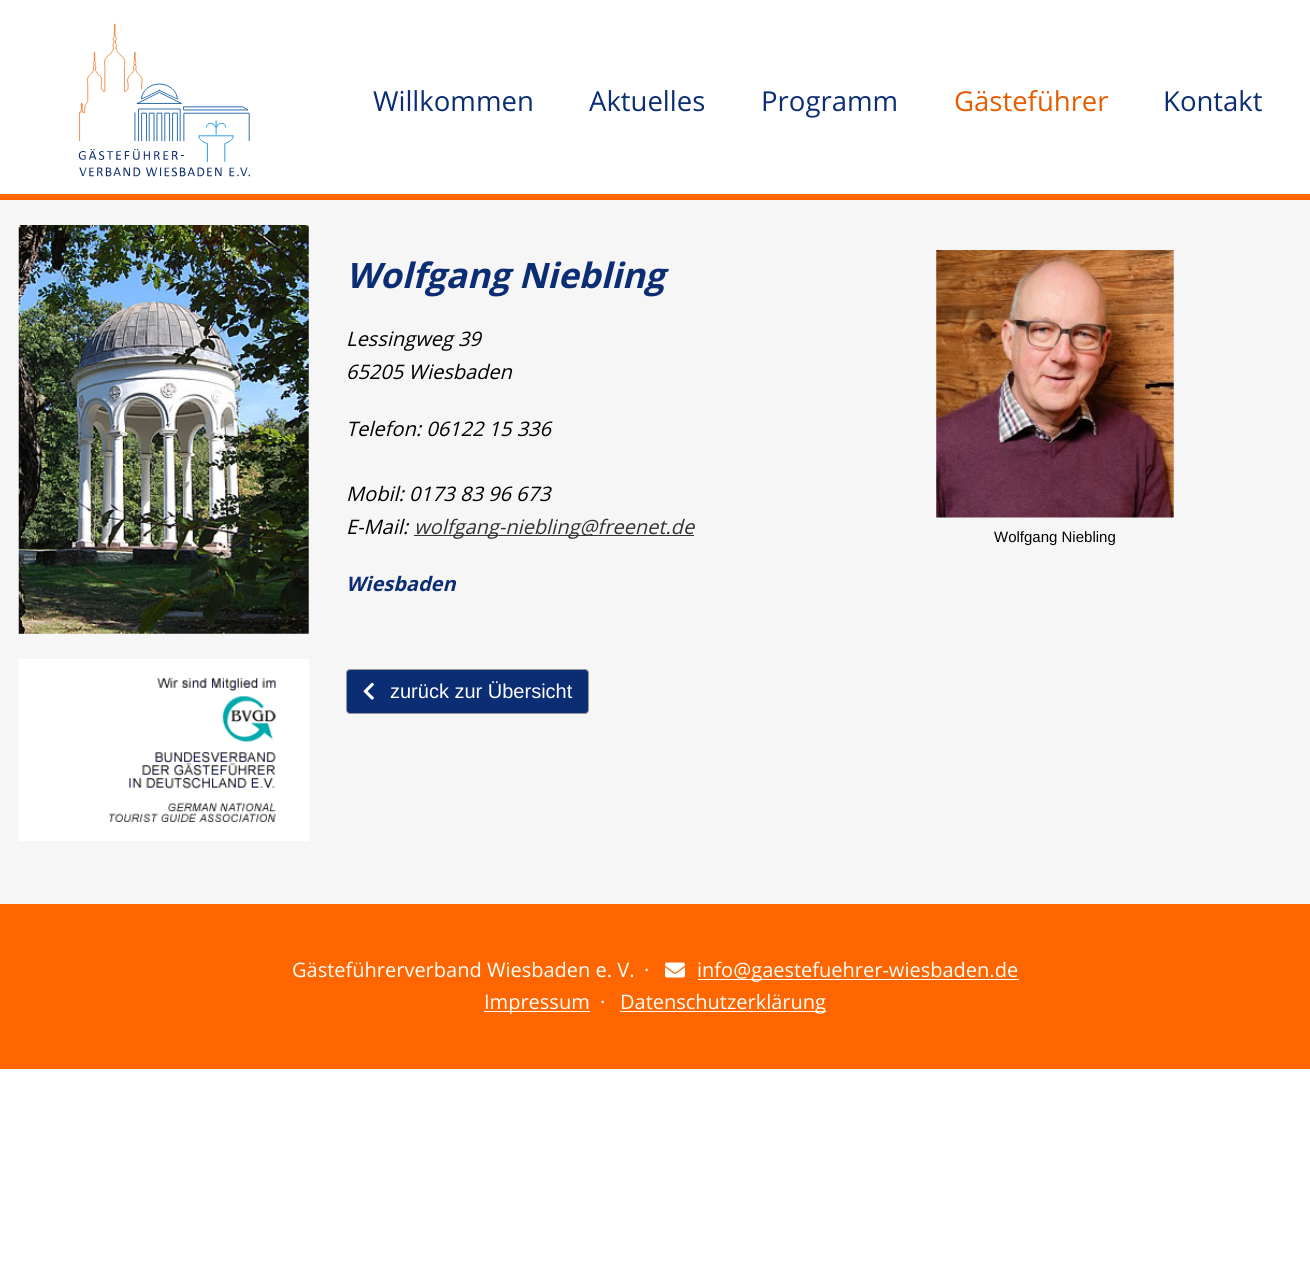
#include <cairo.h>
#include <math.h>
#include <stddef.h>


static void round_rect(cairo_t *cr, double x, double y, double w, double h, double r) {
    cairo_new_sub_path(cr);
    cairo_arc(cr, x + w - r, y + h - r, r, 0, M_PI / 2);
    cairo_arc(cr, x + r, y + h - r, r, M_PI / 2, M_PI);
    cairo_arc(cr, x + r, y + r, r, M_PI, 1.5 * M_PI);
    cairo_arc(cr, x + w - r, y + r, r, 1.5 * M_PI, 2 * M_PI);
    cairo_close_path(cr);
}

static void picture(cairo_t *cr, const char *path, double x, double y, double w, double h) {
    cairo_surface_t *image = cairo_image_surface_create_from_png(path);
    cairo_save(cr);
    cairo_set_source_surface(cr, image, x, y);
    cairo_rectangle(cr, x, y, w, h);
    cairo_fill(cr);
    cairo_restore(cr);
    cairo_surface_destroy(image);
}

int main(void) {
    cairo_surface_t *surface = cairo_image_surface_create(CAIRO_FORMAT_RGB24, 1310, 1268);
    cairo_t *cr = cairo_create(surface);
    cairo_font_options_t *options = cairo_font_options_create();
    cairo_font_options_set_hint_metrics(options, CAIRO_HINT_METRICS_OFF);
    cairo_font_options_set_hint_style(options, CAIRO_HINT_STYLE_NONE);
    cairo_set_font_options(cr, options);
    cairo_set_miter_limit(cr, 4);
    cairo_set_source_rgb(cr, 1, 1, 1);
    cairo_paint(cr);
    cairo_set_source_rgb(cr, 0.961, 0.961, 0.961);
    cairo_rectangle(cr, 0, 200, 1310, 704);
    cairo_fill(cr);
    cairo_set_source_rgb(cr, 1, 0.4, 0);
    cairo_rectangle(cr, 0, 194, 1310, 6);
    cairo_fill(cr);
    picture(cr, "img1.png", 78, 23, 172, 154);
    cairo_select_font_face(cr, "Open Sans", CAIRO_FONT_SLANT_NORMAL, CAIRO_FONT_WEIGHT_NORMAL);
    cairo_set_font_size(cr, 27.5);
    cairo_set_source_rgb(cr, 0.043, 0.176, 0.455);
    cairo_move_to(cr, 373, 111);
    cairo_show_text(cr, "Willkommen");
    cairo_move_to(cr, 589, 111);
    cairo_show_text(cr, "Aktuelles");
    cairo_move_to(cr, 761, 111);
    cairo_show_text(cr, "Programm");
    cairo_set_source_rgb(cr, 0.902, 0.361, 0);
    cairo_move_to(cr, 954, 111);
    cairo_show_text(cr, "Gästeführer");
    cairo_set_source_rgb(cr, 0.043, 0.176, 0.455);
    cairo_move_to(cr, 1163, 111);
    cairo_show_text(cr, "Kontakt");
    picture(cr, "img2.png", 18, 225, 291, 409);
    picture(cr, "img3.png", 19, 659, 290, 182);
    cairo_select_font_face(cr, "Open Sans", CAIRO_FONT_SLANT_ITALIC, CAIRO_FONT_WEIGHT_BOLD);
    cairo_set_font_size(cr, 35);
    cairo_move_to(cr, 346, 288);
    cairo_show_text(cr, "Wolfgang Niebling");
    cairo_select_font_face(cr, "Open Sans", CAIRO_FONT_SLANT_ITALIC, CAIRO_FONT_WEIGHT_NORMAL);
    cairo_set_font_size(cr, 20);
    cairo_set_source_rgb(cr, 0, 0, 0);
    cairo_move_to(cr, 346, 346);
    cairo_show_text(cr, "Lessingweg 39");
    cairo_move_to(cr, 346, 379);
    cairo_show_text(cr, "65205 Wiesbaden");
    cairo_move_to(cr, 346, 436);
    cairo_show_text(cr, "Telefon: 06122 15 336");
    cairo_move_to(cr, 346, 501);
    cairo_show_text(cr, "Mobil: 0173 83 96 673");
    cairo_move_to(cr, 346, 534);
    cairo_show_text(cr, "E-Mail:");
    cairo_set_source_rgb(cr, 0.2, 0.2, 0.2);
    cairo_rectangle(cr, 414, 535, 280, 1);
    cairo_fill(cr);
    cairo_move_to(cr, 414, 534);
    cairo_show_text(cr, "wolfgang-niebling@freenet.de");
    cairo_select_font_face(cr, "Open Sans", CAIRO_FONT_SLANT_ITALIC, CAIRO_FONT_WEIGHT_BOLD);
    cairo_set_source_rgb(cr, 0.043, 0.176, 0.455);
    cairo_move_to(cr, 346, 591);
    cairo_show_text(cr, "Wiesbaden");
    picture(cr, "img4.png", 936, 250, 238, 268);
    cairo_select_font_face(cr, "Liberation Sans", CAIRO_FONT_SLANT_NORMAL, CAIRO_FONT_WEIGHT_NORMAL);
    cairo_set_font_size(cr, 15);
    cairo_set_source_rgb(cr, 0, 0, 0);
    cairo_move_to(cr, 994, 542);
    cairo_show_text(cr, "Wolfgang Niebling");
    cairo_set_source_rgb(cr, 0.043, 0.176, 0.455);
    round_rect(cr, 346.5, 669.5, 242, 44, 3.5);
    cairo_fill_preserve(cr);
    cairo_set_source_rgb(cr, 0.6, 0.6, 0.6);
    cairo_set_line_width(cr, 1);
    cairo_stroke(cr);
    picture(cr, "img5.png", 363, 682, 11, 18);
    cairo_set_font_size(cr, 20);
    cairo_set_source_rgb(cr, 1, 1, 1);
    cairo_move_to(cr, 390, 698);
    cairo_show_text(cr, "zurück zur Übersicht");
    cairo_set_source_rgb(cr, 1, 0.4, 0);
    cairo_rectangle(cr, 0, 904, 1310, 165);
    cairo_fill(cr);
    cairo_select_font_face(cr, "Open Sans", CAIRO_FONT_SLANT_NORMAL, CAIRO_FONT_WEIGHT_NORMAL);
    cairo_set_source_rgb(cr, 1, 1, 1);
    cairo_move_to(cr, 292, 977);
    cairo_show_text(cr, "Gästeführerverband Wiesbaden e. V.");
    cairo_move_to(cr, 644, 977);
    cairo_show_text(cr, "·");
    picture(cr, "img6.png", 665, 962, 20, 16);
    cairo_rectangle(cr, 698, 979, 321, 1);
    cairo_fill(cr);
    cairo_move_to(cr, 697, 977);
    cairo_show_text(cr, "info@gaestefuehrer-wiesbaden.de");
    cairo_rectangle(cr, 484, 1011, 106, 1);
    cairo_fill(cr);
    cairo_move_to(cr, 484, 1009);
    cairo_show_text(cr, "Impressum");
    cairo_move_to(cr, 600, 1009);
    cairo_show_text(cr, "·");
    cairo_rectangle(cr, 620, 1011, 206, 1);
    cairo_fill(cr);
    cairo_move_to(cr, 620, 1009);
    cairo_show_text(cr, "Datenschutzerklärung");
    cairo_surface_write_to_png(surface, "page.png");
    cairo_font_options_destroy(options);
    cairo_destroy(cr);
    cairo_surface_destroy(surface);
    return 0;
}
